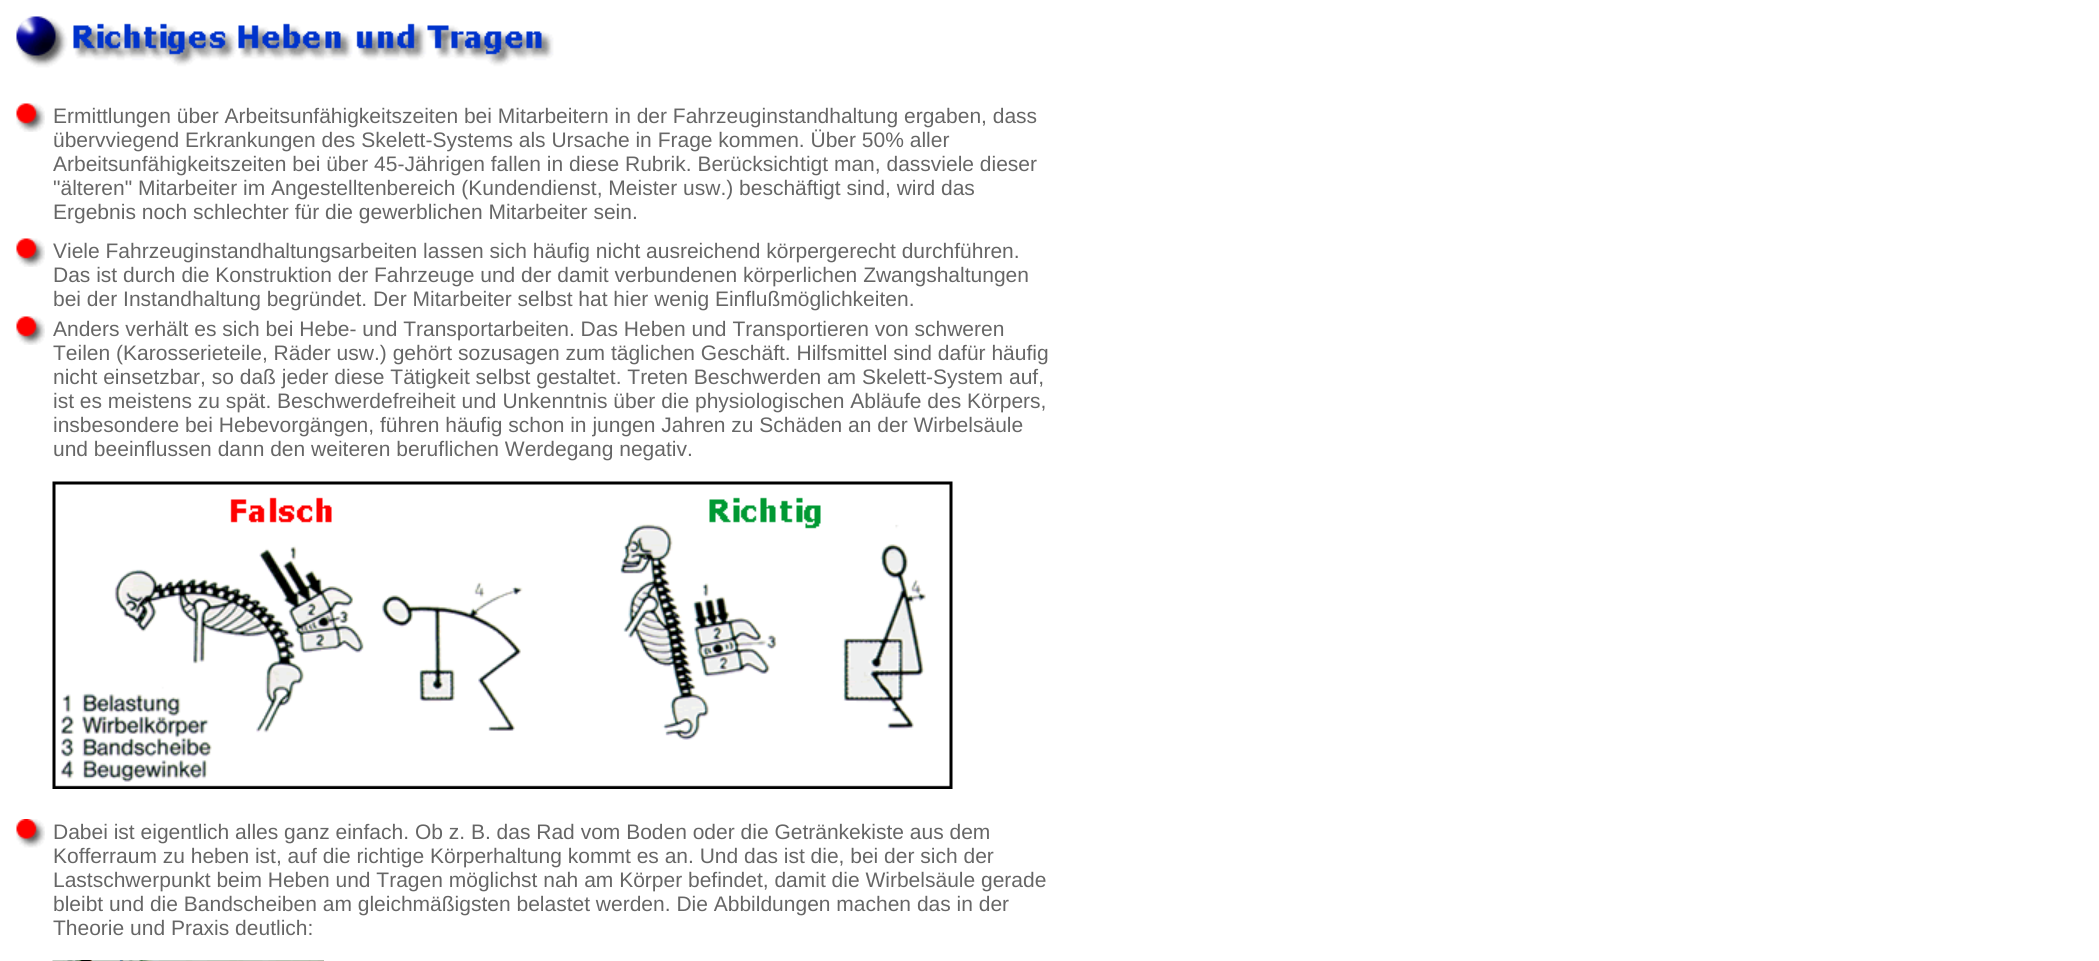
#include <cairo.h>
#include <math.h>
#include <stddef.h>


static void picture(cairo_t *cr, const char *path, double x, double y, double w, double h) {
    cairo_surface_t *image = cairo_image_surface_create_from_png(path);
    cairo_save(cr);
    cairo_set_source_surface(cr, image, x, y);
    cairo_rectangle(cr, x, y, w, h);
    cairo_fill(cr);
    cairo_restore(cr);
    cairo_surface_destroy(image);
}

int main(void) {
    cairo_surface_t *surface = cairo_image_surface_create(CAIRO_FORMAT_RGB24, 2099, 961);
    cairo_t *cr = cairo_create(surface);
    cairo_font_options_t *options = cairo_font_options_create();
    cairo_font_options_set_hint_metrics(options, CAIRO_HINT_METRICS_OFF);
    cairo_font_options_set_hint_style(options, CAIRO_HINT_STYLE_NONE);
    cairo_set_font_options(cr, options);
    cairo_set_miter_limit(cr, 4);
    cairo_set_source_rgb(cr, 1, 1, 1);
    cairo_paint(cr);
    picture(cr, "img1.png", 16, 16, 538, 52);
    picture(cr, "img2.png", 16, 103, 29, 29);
    cairo_select_font_face(cr, "Liberation Sans", CAIRO_FONT_SLANT_NORMAL, CAIRO_FONT_WEIGHT_NORMAL);
    cairo_set_font_size(cr, 21);
    cairo_set_source_rgb(cr, 0.4, 0.4, 0.4);
    cairo_move_to(cr, 53, 123);
    cairo_show_text(cr, "Ermittlungen über Arbeitsunfähigkeitszeiten bei Mitarbeitern in der Fahrzeuginstandhaltung ergaben, dass");
    cairo_move_to(cr, 53, 147);
    cairo_show_text(cr, "übervviegend Erkrankungen des Skelett-Systems als Ursache in Frage kommen. Über 50% aller");
    cairo_move_to(cr, 53, 171);
    cairo_show_text(cr, "Arbeitsunfähigkeitszeiten bei über 45-Jährigen fallen in diese Rubrik. Berücksichtigt man, dassviele dieser");
    cairo_move_to(cr, 53, 195);
    cairo_show_text(cr, "\"älteren\" Mitarbeiter im Angestelltenbereich (Kundendienst, Meister usw.) beschäftigt sind, wird das");
    cairo_move_to(cr, 53, 219);
    cairo_show_text(cr, "Ergebnis noch schlechter für die gewerblichen Mitarbeiter sein.");
    picture(cr, "img2.png", 16, 238, 29, 29);
    cairo_move_to(cr, 53, 258);
    cairo_show_text(cr, "Viele Fahrzeuginstandhaltungsarbeiten lassen sich häufig nicht ausreichend körpergerecht durchführen.");
    cairo_move_to(cr, 53, 282);
    cairo_show_text(cr, "Das ist durch die Konstruktion der Fahrzeuge und der damit verbundenen körperlichen Zwangshaltungen");
    cairo_move_to(cr, 53, 306);
    cairo_show_text(cr, "bei der Instandhaltung begründet. Der Mitarbeiter selbst hat hier wenig Einflußmöglichkeiten.");
    picture(cr, "img2.png", 16, 316, 29, 29);
    cairo_move_to(cr, 53, 336);
    cairo_show_text(cr, "Anders verhält es sich bei Hebe- und Transportarbeiten. Das Heben und Transportieren von schweren");
    cairo_move_to(cr, 53, 360);
    cairo_show_text(cr, "Teilen (Karosserieteile, Räder usw.) gehört sozusagen zum täglichen Geschäft. Hilfsmittel sind dafür häufig");
    cairo_move_to(cr, 53, 384);
    cairo_show_text(cr, "nicht einsetzbar, so daß jeder diese Tätigkeit selbst gestaltet. Treten Beschwerden am Skelett-System auf,");
    cairo_move_to(cr, 53, 408);
    cairo_show_text(cr, "ist es meistens zu spät. Beschwerdefreiheit und Unkenntnis über die physiologischen Abläufe des Körpers,");
    cairo_move_to(cr, 53, 432);
    cairo_show_text(cr, "insbesondere bei Hebevorgängen, führen häufig schon in jungen Jahren zu Schäden an der Wirbelsäule");
    cairo_move_to(cr, 53, 456);
    cairo_show_text(cr, "und beeinflussen dann den weiteren beruflichen Werdegang negativ.");
    picture(cr, "img3.png", 52, 481, 901, 308);
    picture(cr, "img4.png", 16, 819, 29, 29);
    cairo_move_to(cr, 53, 839);
    cairo_show_text(cr, "Dabei ist eigentlich alles ganz einfach. Ob z. B. das Rad vom Boden oder die Getränkekiste aus dem");
    cairo_move_to(cr, 53, 863);
    cairo_show_text(cr, "Kofferraum zu heben ist, auf die richtige Körperhaltung kommt es an. Und das ist die, bei der sich der");
    cairo_move_to(cr, 53, 887);
    cairo_show_text(cr, "Lastschwerpunkt beim Heben und Tragen möglichst nah am Körper befindet, damit die Wirbelsäule gerade");
    cairo_move_to(cr, 53, 911);
    cairo_show_text(cr, "bleibt und die Bandscheiben am gleichmäßigsten belastet werden. Die Abbildungen machen das in der");
    cairo_move_to(cr, 53, 935);
    cairo_show_text(cr, "Theorie und Praxis deutlich:");
    picture(cr, "img5.png", 52, 960, 272, 1);
    cairo_surface_write_to_png(surface, "page.png");
    cairo_font_options_destroy(options);
    cairo_destroy(cr);
    cairo_surface_destroy(surface);
    return 0;
}
